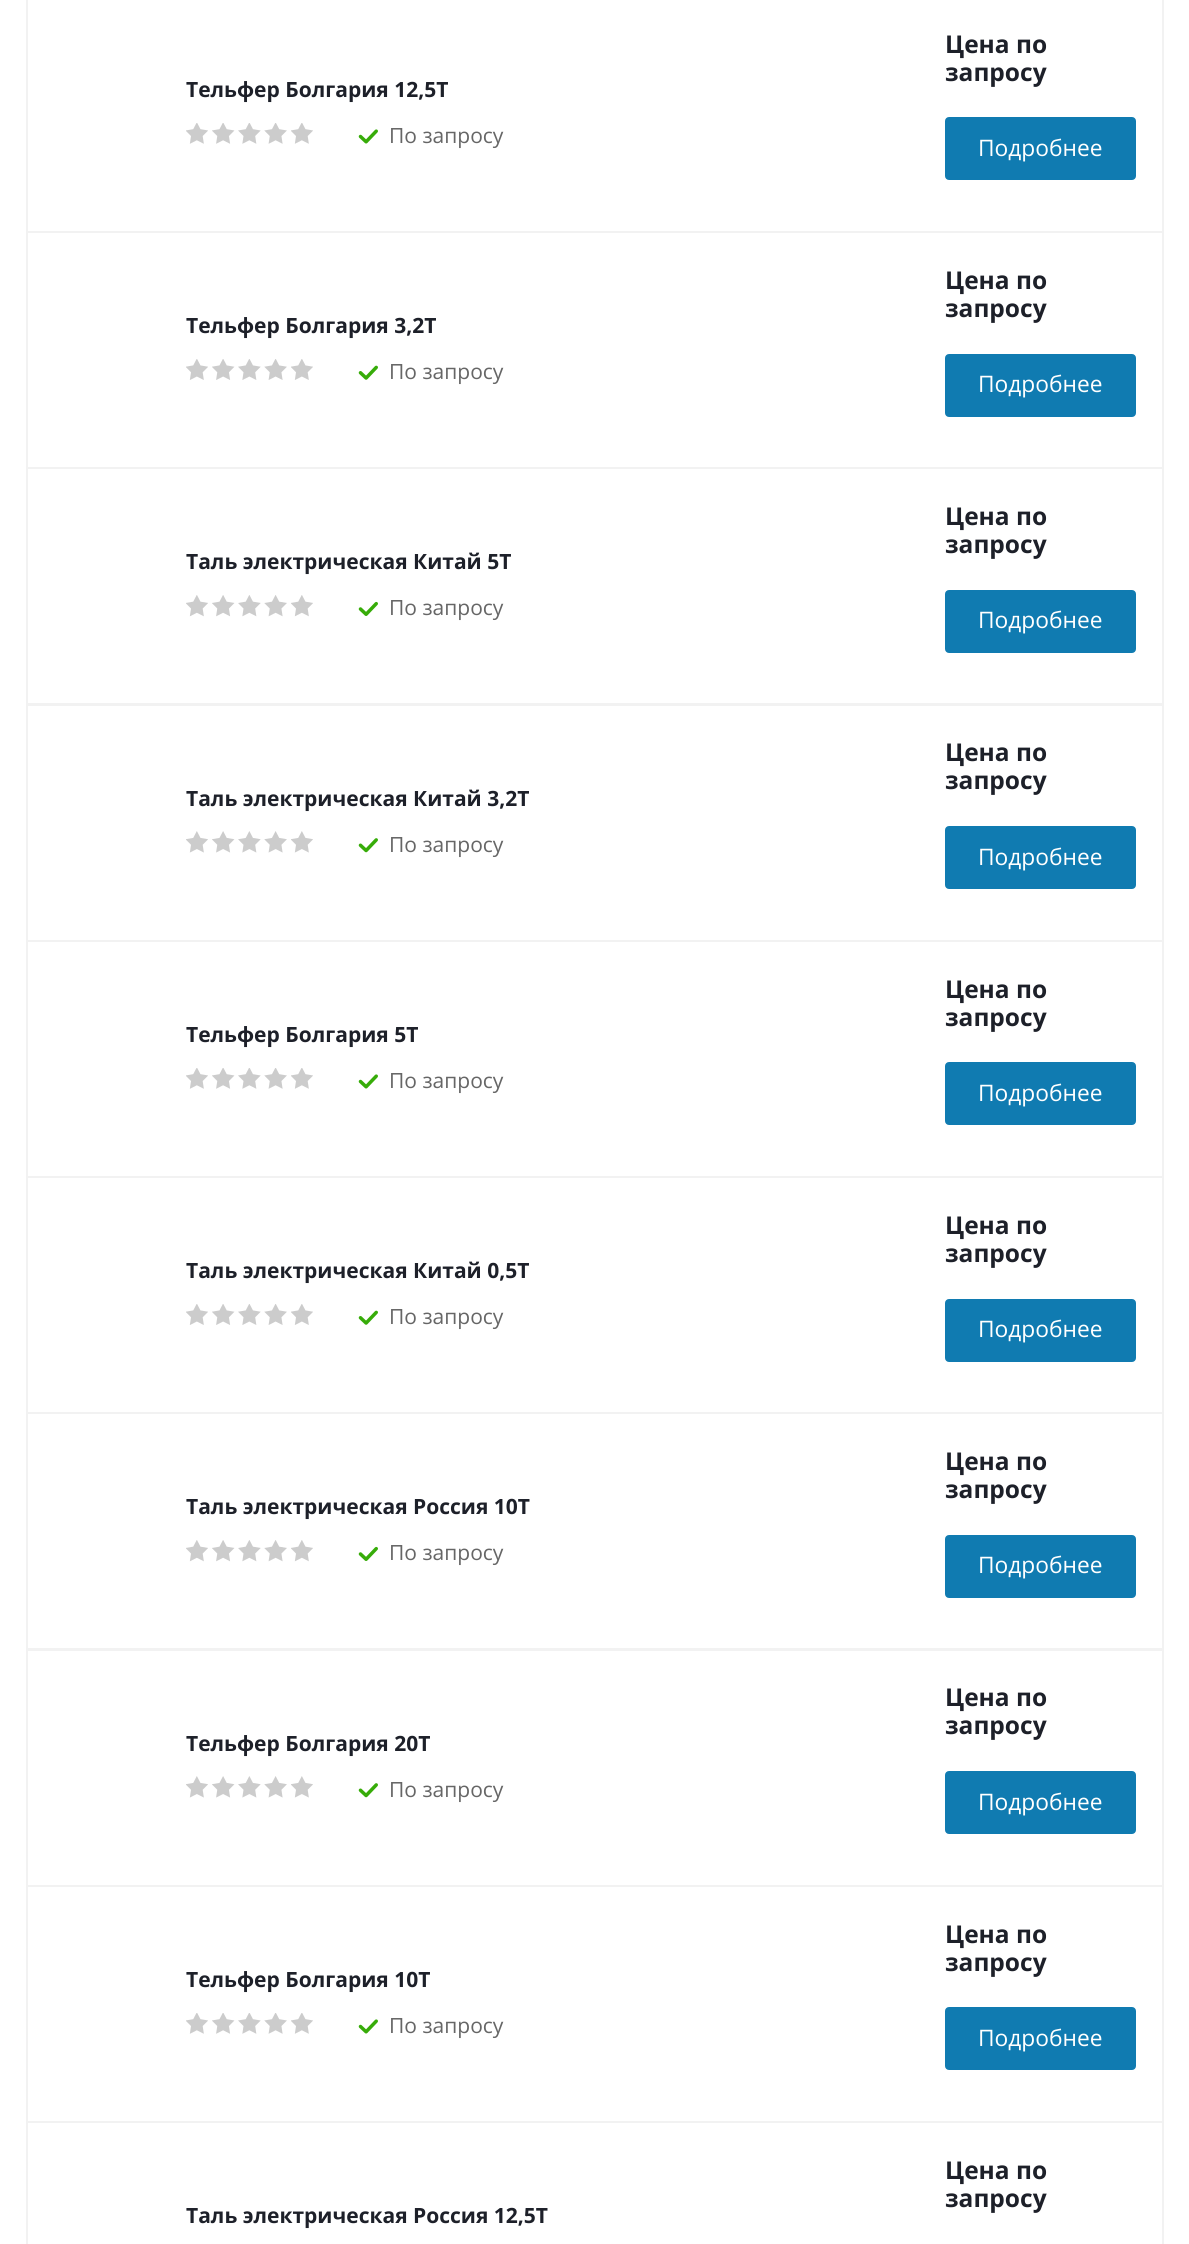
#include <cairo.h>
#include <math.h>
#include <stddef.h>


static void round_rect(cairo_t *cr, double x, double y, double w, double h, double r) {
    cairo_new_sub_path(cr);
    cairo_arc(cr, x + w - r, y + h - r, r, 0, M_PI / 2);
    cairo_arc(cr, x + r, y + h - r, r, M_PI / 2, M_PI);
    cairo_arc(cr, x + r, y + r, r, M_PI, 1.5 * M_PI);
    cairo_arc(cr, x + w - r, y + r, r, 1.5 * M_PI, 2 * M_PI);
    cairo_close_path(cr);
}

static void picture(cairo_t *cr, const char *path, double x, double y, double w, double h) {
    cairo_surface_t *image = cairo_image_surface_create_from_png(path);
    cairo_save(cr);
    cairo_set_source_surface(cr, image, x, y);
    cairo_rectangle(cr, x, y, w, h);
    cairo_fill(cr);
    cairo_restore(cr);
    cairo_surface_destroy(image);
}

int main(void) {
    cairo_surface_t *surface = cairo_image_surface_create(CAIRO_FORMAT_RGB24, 1189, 2244);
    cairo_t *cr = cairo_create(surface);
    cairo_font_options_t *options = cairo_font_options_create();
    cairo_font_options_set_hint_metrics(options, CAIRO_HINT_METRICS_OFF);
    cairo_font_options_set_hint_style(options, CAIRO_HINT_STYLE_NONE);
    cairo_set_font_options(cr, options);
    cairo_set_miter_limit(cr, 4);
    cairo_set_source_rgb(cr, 1, 1, 1);
    cairo_paint(cr);
    cairo_rectangle(cr, 27, -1, 1136, 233);
    cairo_set_source_rgb(cr, 0.949, 0.949, 0.949);
    cairo_stroke(cr);
    cairo_select_font_face(cr, "Open Sans", CAIRO_FONT_SLANT_NORMAL, CAIRO_FONT_WEIGHT_BOLD);
    cairo_set_font_size(cr, 21);
    cairo_set_source_rgb(cr, 0.114, 0.125, 0.161);
    cairo_move_to(cr, 186, 97);
    cairo_show_text(cr, "Тельфер Болгария 12,5Т");
    picture(cr, "img1.png", 186, 123, 22, 21);
    picture(cr, "img2.png", 212, 123, 23, 21);
    picture(cr, "img3.png", 238, 123, 23, 21);
    picture(cr, "img4.png", 264, 123, 23, 21);
    picture(cr, "img1.png", 291, 123, 22, 21);
    picture(cr, "img5.png", 358, 129, 20, 15);
    cairo_select_font_face(cr, "Open Sans", CAIRO_FONT_SLANT_NORMAL, CAIRO_FONT_WEIGHT_NORMAL);
    cairo_set_source_rgb(cr, 0.4, 0.4, 0.4);
    cairo_move_to(cr, 389, 143);
    cairo_show_text(cr, "По запросу");
    cairo_select_font_face(cr, "Open Sans", CAIRO_FONT_SLANT_NORMAL, CAIRO_FONT_WEIGHT_BOLD);
    cairo_set_font_size(cr, 24.5);
    cairo_set_source_rgb(cr, 0.114, 0.125, 0.161);
    cairo_move_to(cr, 945, 53);
    cairo_show_text(cr, "Цена по");
    cairo_move_to(cr, 945, 81);
    cairo_show_text(cr, "запросу");
    cairo_set_source_rgb(cr, 0.063, 0.482, 0.694);
    round_rect(cr, 946, 118, 189, 61, 3);
    cairo_fill_preserve(cr);
    cairo_stroke(cr);
    cairo_select_font_face(cr, "Open Sans", CAIRO_FONT_SLANT_NORMAL, CAIRO_FONT_WEIGHT_NORMAL);
    cairo_set_font_size(cr, 22.75);
    cairo_set_source_rgb(cr, 1, 1, 1);
    cairo_move_to(cr, 978, 156);
    cairo_show_text(cr, "Подробнее");
    cairo_rectangle(cr, 27, 232, 1136, 236);
    cairo_set_source_rgb(cr, 0.949, 0.949, 0.949);
    cairo_stroke(cr);
    cairo_select_font_face(cr, "Open Sans", CAIRO_FONT_SLANT_NORMAL, CAIRO_FONT_WEIGHT_BOLD);
    cairo_set_font_size(cr, 21);
    cairo_set_source_rgb(cr, 0.114, 0.125, 0.161);
    cairo_move_to(cr, 186, 333);
    cairo_show_text(cr, "Тельфер Болгария 3,2Т");
    picture(cr, "img6.png", 186, 359, 22, 21);
    picture(cr, "img7.png", 212, 359, 23, 21);
    picture(cr, "img8.png", 238, 359, 23, 21);
    picture(cr, "img9.png", 264, 359, 23, 21);
    picture(cr, "img6.png", 291, 359, 22, 21);
    picture(cr, "img10.png", 358, 365, 20, 15);
    cairo_select_font_face(cr, "Open Sans", CAIRO_FONT_SLANT_NORMAL, CAIRO_FONT_WEIGHT_NORMAL);
    cairo_set_source_rgb(cr, 0.4, 0.4, 0.4);
    cairo_move_to(cr, 389, 379);
    cairo_show_text(cr, "По запросу");
    cairo_select_font_face(cr, "Open Sans", CAIRO_FONT_SLANT_NORMAL, CAIRO_FONT_WEIGHT_BOLD);
    cairo_set_font_size(cr, 24.5);
    cairo_set_source_rgb(cr, 0.114, 0.125, 0.161);
    cairo_move_to(cr, 945, 289);
    cairo_show_text(cr, "Цена по");
    cairo_move_to(cr, 945, 317);
    cairo_show_text(cr, "запросу");
    cairo_set_source_rgb(cr, 0.063, 0.482, 0.694);
    round_rect(cr, 946, 355, 189, 61, 3);
    cairo_fill_preserve(cr);
    cairo_stroke(cr);
    cairo_select_font_face(cr, "Open Sans", CAIRO_FONT_SLANT_NORMAL, CAIRO_FONT_WEIGHT_NORMAL);
    cairo_set_font_size(cr, 22.75);
    cairo_set_source_rgb(cr, 1, 1, 1);
    cairo_move_to(cr, 978, 392);
    cairo_show_text(cr, "Подробнее");
    cairo_rectangle(cr, 27, 468, 1136, 236);
    cairo_set_source_rgb(cr, 0.949, 0.949, 0.949);
    cairo_stroke(cr);
    cairo_select_font_face(cr, "Open Sans", CAIRO_FONT_SLANT_NORMAL, CAIRO_FONT_WEIGHT_BOLD);
    cairo_set_font_size(cr, 21);
    cairo_set_source_rgb(cr, 0.114, 0.125, 0.161);
    cairo_move_to(cr, 186, 569);
    cairo_show_text(cr, "Таль электрическая Китай 5Т");
    picture(cr, "img11.png", 186, 595, 22, 22);
    picture(cr, "img12.png", 212, 595, 23, 22);
    picture(cr, "img13.png", 238, 595, 23, 22);
    picture(cr, "img14.png", 264, 595, 23, 22);
    picture(cr, "img11.png", 291, 595, 22, 22);
    picture(cr, "img15.png", 358, 601, 20, 15);
    cairo_select_font_face(cr, "Open Sans", CAIRO_FONT_SLANT_NORMAL, CAIRO_FONT_WEIGHT_NORMAL);
    cairo_set_source_rgb(cr, 0.4, 0.4, 0.4);
    cairo_move_to(cr, 389, 615);
    cairo_show_text(cr, "По запросу");
    cairo_select_font_face(cr, "Open Sans", CAIRO_FONT_SLANT_NORMAL, CAIRO_FONT_WEIGHT_BOLD);
    cairo_set_font_size(cr, 24.5);
    cairo_set_source_rgb(cr, 0.114, 0.125, 0.161);
    cairo_move_to(cr, 945, 525);
    cairo_show_text(cr, "Цена по");
    cairo_move_to(cr, 945, 553);
    cairo_show_text(cr, "запросу");
    cairo_set_source_rgb(cr, 0.063, 0.482, 0.694);
    round_rect(cr, 946, 591, 189, 61, 3);
    cairo_fill_preserve(cr);
    cairo_stroke(cr);
    cairo_select_font_face(cr, "Open Sans", CAIRO_FONT_SLANT_NORMAL, CAIRO_FONT_WEIGHT_NORMAL);
    cairo_set_font_size(cr, 22.75);
    cairo_set_source_rgb(cr, 1, 1, 1);
    cairo_move_to(cr, 978, 628);
    cairo_show_text(cr, "Подробнее");
    cairo_rectangle(cr, 27, 705, 1136, 236);
    cairo_set_source_rgb(cr, 0.949, 0.949, 0.949);
    cairo_stroke(cr);
    cairo_select_font_face(cr, "Open Sans", CAIRO_FONT_SLANT_NORMAL, CAIRO_FONT_WEIGHT_BOLD);
    cairo_set_font_size(cr, 21);
    cairo_set_source_rgb(cr, 0.114, 0.125, 0.161);
    cairo_move_to(cr, 186, 806);
    cairo_show_text(cr, "Таль электрическая Китай 3,2Т");
    picture(cr, "img16.png", 186, 831, 22, 22);
    picture(cr, "img17.png", 212, 831, 23, 22);
    picture(cr, "img18.png", 238, 831, 23, 22);
    picture(cr, "img19.png", 264, 831, 23, 22);
    picture(cr, "img16.png", 291, 831, 22, 22);
    picture(cr, "img20.png", 358, 838, 20, 15);
    cairo_select_font_face(cr, "Open Sans", CAIRO_FONT_SLANT_NORMAL, CAIRO_FONT_WEIGHT_NORMAL);
    cairo_set_source_rgb(cr, 0.4, 0.4, 0.4);
    cairo_move_to(cr, 389, 852);
    cairo_show_text(cr, "По запросу");
    cairo_select_font_face(cr, "Open Sans", CAIRO_FONT_SLANT_NORMAL, CAIRO_FONT_WEIGHT_BOLD);
    cairo_set_font_size(cr, 24.5);
    cairo_set_source_rgb(cr, 0.114, 0.125, 0.161);
    cairo_move_to(cr, 945, 761);
    cairo_show_text(cr, "Цена по");
    cairo_move_to(cr, 945, 789);
    cairo_show_text(cr, "запросу");
    cairo_set_source_rgb(cr, 0.063, 0.482, 0.694);
    round_rect(cr, 946, 827, 189, 61, 3);
    cairo_fill_preserve(cr);
    cairo_stroke(cr);
    cairo_select_font_face(cr, "Open Sans", CAIRO_FONT_SLANT_NORMAL, CAIRO_FONT_WEIGHT_NORMAL);
    cairo_set_font_size(cr, 22.75);
    cairo_set_source_rgb(cr, 1, 1, 1);
    cairo_move_to(cr, 978, 865);
    cairo_show_text(cr, "Подробнее");
    cairo_rectangle(cr, 27, 941, 1136, 236);
    cairo_set_source_rgb(cr, 0.949, 0.949, 0.949);
    cairo_stroke(cr);
    cairo_select_font_face(cr, "Open Sans", CAIRO_FONT_SLANT_NORMAL, CAIRO_FONT_WEIGHT_BOLD);
    cairo_set_font_size(cr, 21);
    cairo_set_source_rgb(cr, 0.114, 0.125, 0.161);
    cairo_move_to(cr, 186, 1042);
    cairo_show_text(cr, "Тельфер Болгария 5Т");
    picture(cr, "img1.png", 186, 1068, 22, 21);
    picture(cr, "img2.png", 212, 1068, 23, 21);
    picture(cr, "img3.png", 238, 1068, 23, 21);
    picture(cr, "img4.png", 264, 1068, 23, 21);
    picture(cr, "img1.png", 291, 1068, 22, 21);
    picture(cr, "img5.png", 358, 1074, 20, 15);
    cairo_select_font_face(cr, "Open Sans", CAIRO_FONT_SLANT_NORMAL, CAIRO_FONT_WEIGHT_NORMAL);
    cairo_set_source_rgb(cr, 0.4, 0.4, 0.4);
    cairo_move_to(cr, 389, 1088);
    cairo_show_text(cr, "По запросу");
    cairo_select_font_face(cr, "Open Sans", CAIRO_FONT_SLANT_NORMAL, CAIRO_FONT_WEIGHT_BOLD);
    cairo_set_font_size(cr, 24.5);
    cairo_set_source_rgb(cr, 0.114, 0.125, 0.161);
    cairo_move_to(cr, 945, 998);
    cairo_show_text(cr, "Цена по");
    cairo_move_to(cr, 945, 1026);
    cairo_show_text(cr, "запросу");
    cairo_set_source_rgb(cr, 0.063, 0.482, 0.694);
    round_rect(cr, 946, 1063, 189, 61, 3);
    cairo_fill_preserve(cr);
    cairo_stroke(cr);
    cairo_select_font_face(cr, "Open Sans", CAIRO_FONT_SLANT_NORMAL, CAIRO_FONT_WEIGHT_NORMAL);
    cairo_set_font_size(cr, 22.75);
    cairo_set_source_rgb(cr, 1, 1, 1);
    cairo_move_to(cr, 978, 1101);
    cairo_show_text(cr, "Подробнее");
    cairo_rectangle(cr, 27, 1177, 1136, 236);
    cairo_set_source_rgb(cr, 0.949, 0.949, 0.949);
    cairo_stroke(cr);
    cairo_select_font_face(cr, "Open Sans", CAIRO_FONT_SLANT_NORMAL, CAIRO_FONT_WEIGHT_BOLD);
    cairo_set_font_size(cr, 21);
    cairo_set_source_rgb(cr, 0.114, 0.125, 0.161);
    cairo_move_to(cr, 186, 1278);
    cairo_show_text(cr, "Таль электрическая Китай 0,5Т");
    picture(cr, "img6.png", 186, 1304, 22, 21);
    picture(cr, "img7.png", 212, 1304, 23, 21);
    picture(cr, "img8.png", 238, 1304, 23, 21);
    picture(cr, "img9.png", 264, 1304, 23, 21);
    picture(cr, "img6.png", 291, 1304, 22, 21);
    picture(cr, "img10.png", 358, 1310, 20, 15);
    cairo_select_font_face(cr, "Open Sans", CAIRO_FONT_SLANT_NORMAL, CAIRO_FONT_WEIGHT_NORMAL);
    cairo_set_source_rgb(cr, 0.4, 0.4, 0.4);
    cairo_move_to(cr, 389, 1324);
    cairo_show_text(cr, "По запросу");
    cairo_select_font_face(cr, "Open Sans", CAIRO_FONT_SLANT_NORMAL, CAIRO_FONT_WEIGHT_BOLD);
    cairo_set_font_size(cr, 24.5);
    cairo_set_source_rgb(cr, 0.114, 0.125, 0.161);
    cairo_move_to(cr, 945, 1234);
    cairo_show_text(cr, "Цена по");
    cairo_move_to(cr, 945, 1262);
    cairo_show_text(cr, "запросу");
    cairo_set_source_rgb(cr, 0.063, 0.482, 0.694);
    round_rect(cr, 946, 1300, 189, 61, 3);
    cairo_fill_preserve(cr);
    cairo_stroke(cr);
    cairo_select_font_face(cr, "Open Sans", CAIRO_FONT_SLANT_NORMAL, CAIRO_FONT_WEIGHT_NORMAL);
    cairo_set_font_size(cr, 22.75);
    cairo_set_source_rgb(cr, 1, 1, 1);
    cairo_move_to(cr, 978, 1337);
    cairo_show_text(cr, "Подробнее");
    cairo_rectangle(cr, 27, 1413, 1136, 236);
    cairo_set_source_rgb(cr, 0.949, 0.949, 0.949);
    cairo_stroke(cr);
    cairo_select_font_face(cr, "Open Sans", CAIRO_FONT_SLANT_NORMAL, CAIRO_FONT_WEIGHT_BOLD);
    cairo_set_font_size(cr, 21);
    cairo_set_source_rgb(cr, 0.114, 0.125, 0.161);
    cairo_move_to(cr, 186, 1514);
    cairo_show_text(cr, "Таль электрическая Россия 10Т");
    picture(cr, "img11.png", 186, 1540, 22, 22);
    picture(cr, "img12.png", 212, 1540, 23, 22);
    picture(cr, "img13.png", 238, 1540, 23, 22);
    picture(cr, "img14.png", 264, 1540, 23, 22);
    picture(cr, "img11.png", 291, 1540, 22, 22);
    picture(cr, "img15.png", 358, 1546, 20, 15);
    cairo_select_font_face(cr, "Open Sans", CAIRO_FONT_SLANT_NORMAL, CAIRO_FONT_WEIGHT_NORMAL);
    cairo_set_source_rgb(cr, 0.4, 0.4, 0.4);
    cairo_move_to(cr, 389, 1560);
    cairo_show_text(cr, "По запросу");
    cairo_select_font_face(cr, "Open Sans", CAIRO_FONT_SLANT_NORMAL, CAIRO_FONT_WEIGHT_BOLD);
    cairo_set_font_size(cr, 24.5);
    cairo_set_source_rgb(cr, 0.114, 0.125, 0.161);
    cairo_move_to(cr, 945, 1470);
    cairo_show_text(cr, "Цена по");
    cairo_move_to(cr, 945, 1498);
    cairo_show_text(cr, "запросу");
    cairo_set_source_rgb(cr, 0.063, 0.482, 0.694);
    round_rect(cr, 946, 1536, 189, 61, 3);
    cairo_fill_preserve(cr);
    cairo_stroke(cr);
    cairo_select_font_face(cr, "Open Sans", CAIRO_FONT_SLANT_NORMAL, CAIRO_FONT_WEIGHT_NORMAL);
    cairo_set_font_size(cr, 22.75);
    cairo_set_source_rgb(cr, 1, 1, 1);
    cairo_move_to(cr, 978, 1573);
    cairo_show_text(cr, "Подробнее");
    cairo_rectangle(cr, 27, 1650, 1136, 236);
    cairo_set_source_rgb(cr, 0.949, 0.949, 0.949);
    cairo_stroke(cr);
    cairo_select_font_face(cr, "Open Sans", CAIRO_FONT_SLANT_NORMAL, CAIRO_FONT_WEIGHT_BOLD);
    cairo_set_font_size(cr, 21);
    cairo_set_source_rgb(cr, 0.114, 0.125, 0.161);
    cairo_move_to(cr, 186, 1751);
    cairo_show_text(cr, "Тельфер Болгария 20Т");
    picture(cr, "img16.png", 186, 1776, 22, 22);
    picture(cr, "img17.png", 212, 1776, 23, 22);
    picture(cr, "img18.png", 238, 1776, 23, 22);
    picture(cr, "img19.png", 264, 1776, 23, 22);
    picture(cr, "img16.png", 291, 1776, 22, 22);
    picture(cr, "img20.png", 358, 1783, 20, 15);
    cairo_select_font_face(cr, "Open Sans", CAIRO_FONT_SLANT_NORMAL, CAIRO_FONT_WEIGHT_NORMAL);
    cairo_set_source_rgb(cr, 0.4, 0.4, 0.4);
    cairo_move_to(cr, 389, 1797);
    cairo_show_text(cr, "По запросу");
    cairo_select_font_face(cr, "Open Sans", CAIRO_FONT_SLANT_NORMAL, CAIRO_FONT_WEIGHT_BOLD);
    cairo_set_font_size(cr, 24.5);
    cairo_set_source_rgb(cr, 0.114, 0.125, 0.161);
    cairo_move_to(cr, 945, 1706);
    cairo_show_text(cr, "Цена по");
    cairo_move_to(cr, 945, 1734);
    cairo_show_text(cr, "запросу");
    cairo_set_source_rgb(cr, 0.063, 0.482, 0.694);
    round_rect(cr, 946, 1772, 189, 61, 3);
    cairo_fill_preserve(cr);
    cairo_stroke(cr);
    cairo_select_font_face(cr, "Open Sans", CAIRO_FONT_SLANT_NORMAL, CAIRO_FONT_WEIGHT_NORMAL);
    cairo_set_font_size(cr, 22.75);
    cairo_set_source_rgb(cr, 1, 1, 1);
    cairo_move_to(cr, 978, 1810);
    cairo_show_text(cr, "Подробнее");
    cairo_rectangle(cr, 27, 1886, 1136, 236);
    cairo_set_source_rgb(cr, 0.949, 0.949, 0.949);
    cairo_stroke(cr);
    cairo_select_font_face(cr, "Open Sans", CAIRO_FONT_SLANT_NORMAL, CAIRO_FONT_WEIGHT_BOLD);
    cairo_set_font_size(cr, 21);
    cairo_set_source_rgb(cr, 0.114, 0.125, 0.161);
    cairo_move_to(cr, 186, 1987);
    cairo_show_text(cr, "Тельфер Болгария 10Т");
    picture(cr, "img1.png", 186, 2013, 22, 21);
    picture(cr, "img2.png", 212, 2013, 23, 21);
    picture(cr, "img3.png", 238, 2013, 23, 21);
    picture(cr, "img4.png", 264, 2013, 23, 21);
    picture(cr, "img1.png", 291, 2013, 22, 21);
    picture(cr, "img5.png", 358, 2019, 20, 15);
    cairo_select_font_face(cr, "Open Sans", CAIRO_FONT_SLANT_NORMAL, CAIRO_FONT_WEIGHT_NORMAL);
    cairo_set_source_rgb(cr, 0.4, 0.4, 0.4);
    cairo_move_to(cr, 389, 2033);
    cairo_show_text(cr, "По запросу");
    cairo_select_font_face(cr, "Open Sans", CAIRO_FONT_SLANT_NORMAL, CAIRO_FONT_WEIGHT_BOLD);
    cairo_set_font_size(cr, 24.5);
    cairo_set_source_rgb(cr, 0.114, 0.125, 0.161);
    cairo_move_to(cr, 945, 1943);
    cairo_show_text(cr, "Цена по");
    cairo_move_to(cr, 945, 1971);
    cairo_show_text(cr, "запросу");
    cairo_set_source_rgb(cr, 0.063, 0.482, 0.694);
    round_rect(cr, 946, 2008, 189, 61, 3);
    cairo_fill_preserve(cr);
    cairo_stroke(cr);
    cairo_select_font_face(cr, "Open Sans", CAIRO_FONT_SLANT_NORMAL, CAIRO_FONT_WEIGHT_NORMAL);
    cairo_set_font_size(cr, 22.75);
    cairo_set_source_rgb(cr, 1, 1, 1);
    cairo_move_to(cr, 978, 2046);
    cairo_show_text(cr, "Подробнее");
    cairo_rectangle(cr, 27, 2122, 1136, 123);
    cairo_set_source_rgb(cr, 0.949, 0.949, 0.949);
    cairo_stroke(cr);
    cairo_select_font_face(cr, "Open Sans", CAIRO_FONT_SLANT_NORMAL, CAIRO_FONT_WEIGHT_BOLD);
    cairo_set_font_size(cr, 24.5);
    cairo_set_source_rgb(cr, 0.114, 0.125, 0.161);
    cairo_move_to(cr, 945, 2179);
    cairo_show_text(cr, "Цена по");
    cairo_move_to(cr, 945, 2207);
    cairo_show_text(cr, "запросу");
    cairo_set_font_size(cr, 21);
    cairo_move_to(cr, 186, 2223);
    cairo_show_text(cr, "Таль электрическая Россия 12,5Т");
    cairo_surface_write_to_png(surface, "page.png");
    cairo_font_options_destroy(options);
    cairo_destroy(cr);
    cairo_surface_destroy(surface);
    return 0;
}
